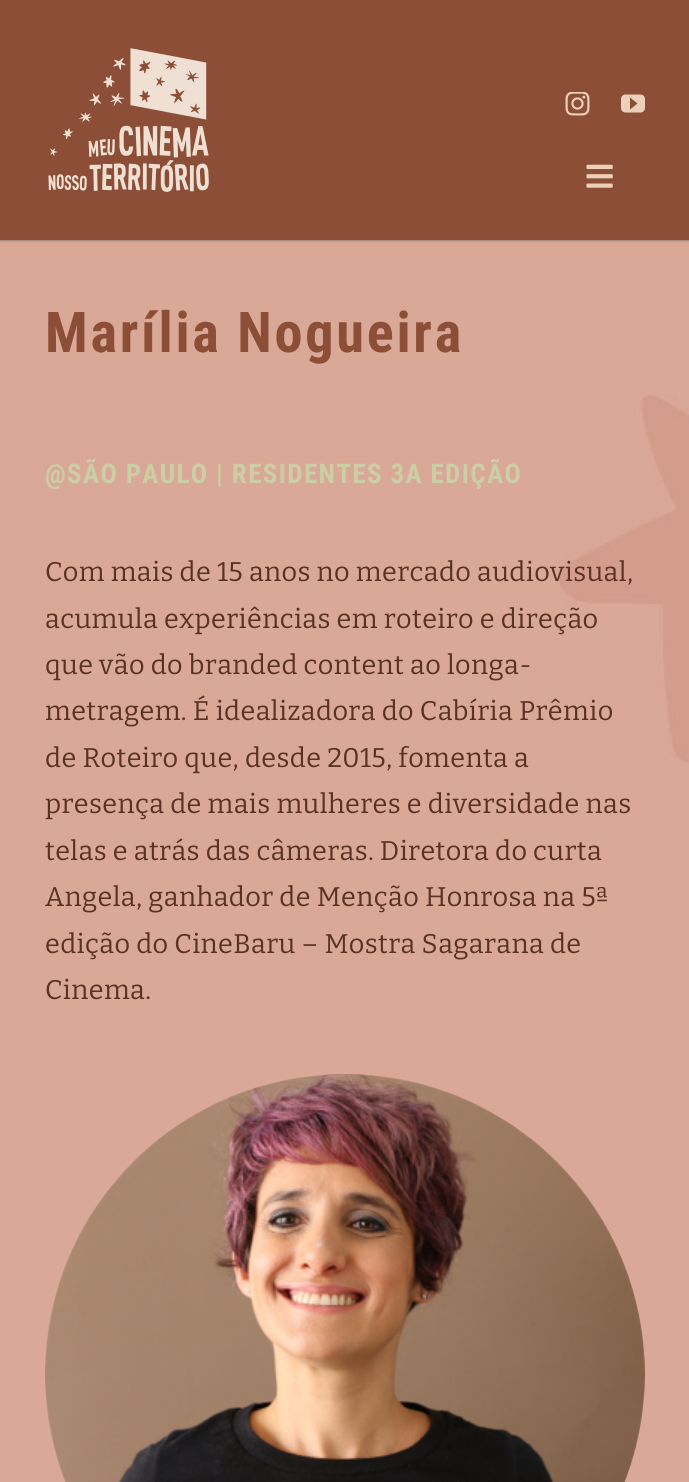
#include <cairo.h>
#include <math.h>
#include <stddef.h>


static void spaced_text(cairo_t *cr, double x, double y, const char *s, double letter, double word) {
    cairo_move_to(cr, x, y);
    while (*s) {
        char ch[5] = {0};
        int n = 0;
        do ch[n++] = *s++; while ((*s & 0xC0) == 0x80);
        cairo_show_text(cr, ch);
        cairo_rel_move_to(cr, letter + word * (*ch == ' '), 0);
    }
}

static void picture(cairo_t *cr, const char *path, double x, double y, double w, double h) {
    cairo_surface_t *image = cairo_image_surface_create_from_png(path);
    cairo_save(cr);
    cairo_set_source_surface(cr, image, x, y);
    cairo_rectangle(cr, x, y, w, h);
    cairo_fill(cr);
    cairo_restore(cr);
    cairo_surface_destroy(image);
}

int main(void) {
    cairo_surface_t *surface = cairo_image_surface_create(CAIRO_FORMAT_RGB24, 689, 1482);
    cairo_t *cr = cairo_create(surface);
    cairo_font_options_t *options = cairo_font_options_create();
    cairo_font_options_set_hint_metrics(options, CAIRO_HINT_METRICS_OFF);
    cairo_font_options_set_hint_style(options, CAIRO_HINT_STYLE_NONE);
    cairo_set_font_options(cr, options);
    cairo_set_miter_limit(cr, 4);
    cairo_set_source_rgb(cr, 1, 1, 1);
    cairo_paint(cr);
    cairo_set_source_rgb(cr, 0.549, 0.306, 0.216);
    cairo_rectangle(cr, 0, 0, 689, 240);
    cairo_fill(cr);
    picture(cr, "img1.png", 48, 48, 161, 144);
    picture(cr, "img2.png", 565, 92, 25, 24);
    picture(cr, "img3.png", 621, 94, 24, 19);
    picture(cr, "img4.png", 586, 164, 27, 24);
    picture(cr, "img5.png", 0, 240, 689, 1242);
    cairo_select_font_face(cr, "Roboto Condensed", CAIRO_FONT_SLANT_NORMAL, CAIRO_FONT_WEIGHT_BOLD);
    cairo_set_font_size(cr, 56.25);
    spaced_text(cr, 45, 352, "Marília Nogueira", 2.75, 0);
    cairo_set_font_size(cr, 27);
    cairo_set_source_rgb(cr, 0.804, 0.808, 0.647);
    spaced_text(cr, 45, 483, "@SÃO PAULO | RESIDENTES 3A EDIÇÃO", 1.35, 0);
    cairo_select_font_face(cr, "Bitter", CAIRO_FONT_SLANT_NORMAL, CAIRO_FONT_WEIGHT_NORMAL);
    cairo_set_source_rgb(cr, 0.349, 0.196, 0.137);
    spaced_text(cr, 45, 581, "Com mais de 15 anos no mercado audiovisual,", 0.4, 0);
    spaced_text(cr, 45, 628, "acumula experiências em roteiro e direção", 0.4, 0);
    spaced_text(cr, 45, 674, "que vão do branded content ao longa-", 0.4, 0);
    spaced_text(cr, 45, 720, "metragem. É idealizadora do Cabíria Prêmio", 0.4, 0);
    spaced_text(cr, 45, 767, "de Roteiro que, desde 2015, fomenta a", 0.4, 0);
    spaced_text(cr, 45, 813, "presença de mais mulheres e diversidade nas", 0.4, 0);
    spaced_text(cr, 45, 860, "telas e atrás das câmeras. Diretora do curta", 0.4, 0);
    spaced_text(cr, 45, 906, "Angela, ganhador de Menção Honrosa na 5ª", 0.4, 0);
    spaced_text(cr, 45, 953, "edição do CineBaru – Mostra Sagarana de", 0.4, 0);
    spaced_text(cr, 45, 999, "Cinema.", 0.4, 0);
    picture(cr, "img6.png", 45, 1074, 600, 408);
    cairo_surface_write_to_png(surface, "page.png");
    cairo_font_options_destroy(options);
    cairo_destroy(cr);
    cairo_surface_destroy(surface);
    return 0;
}
